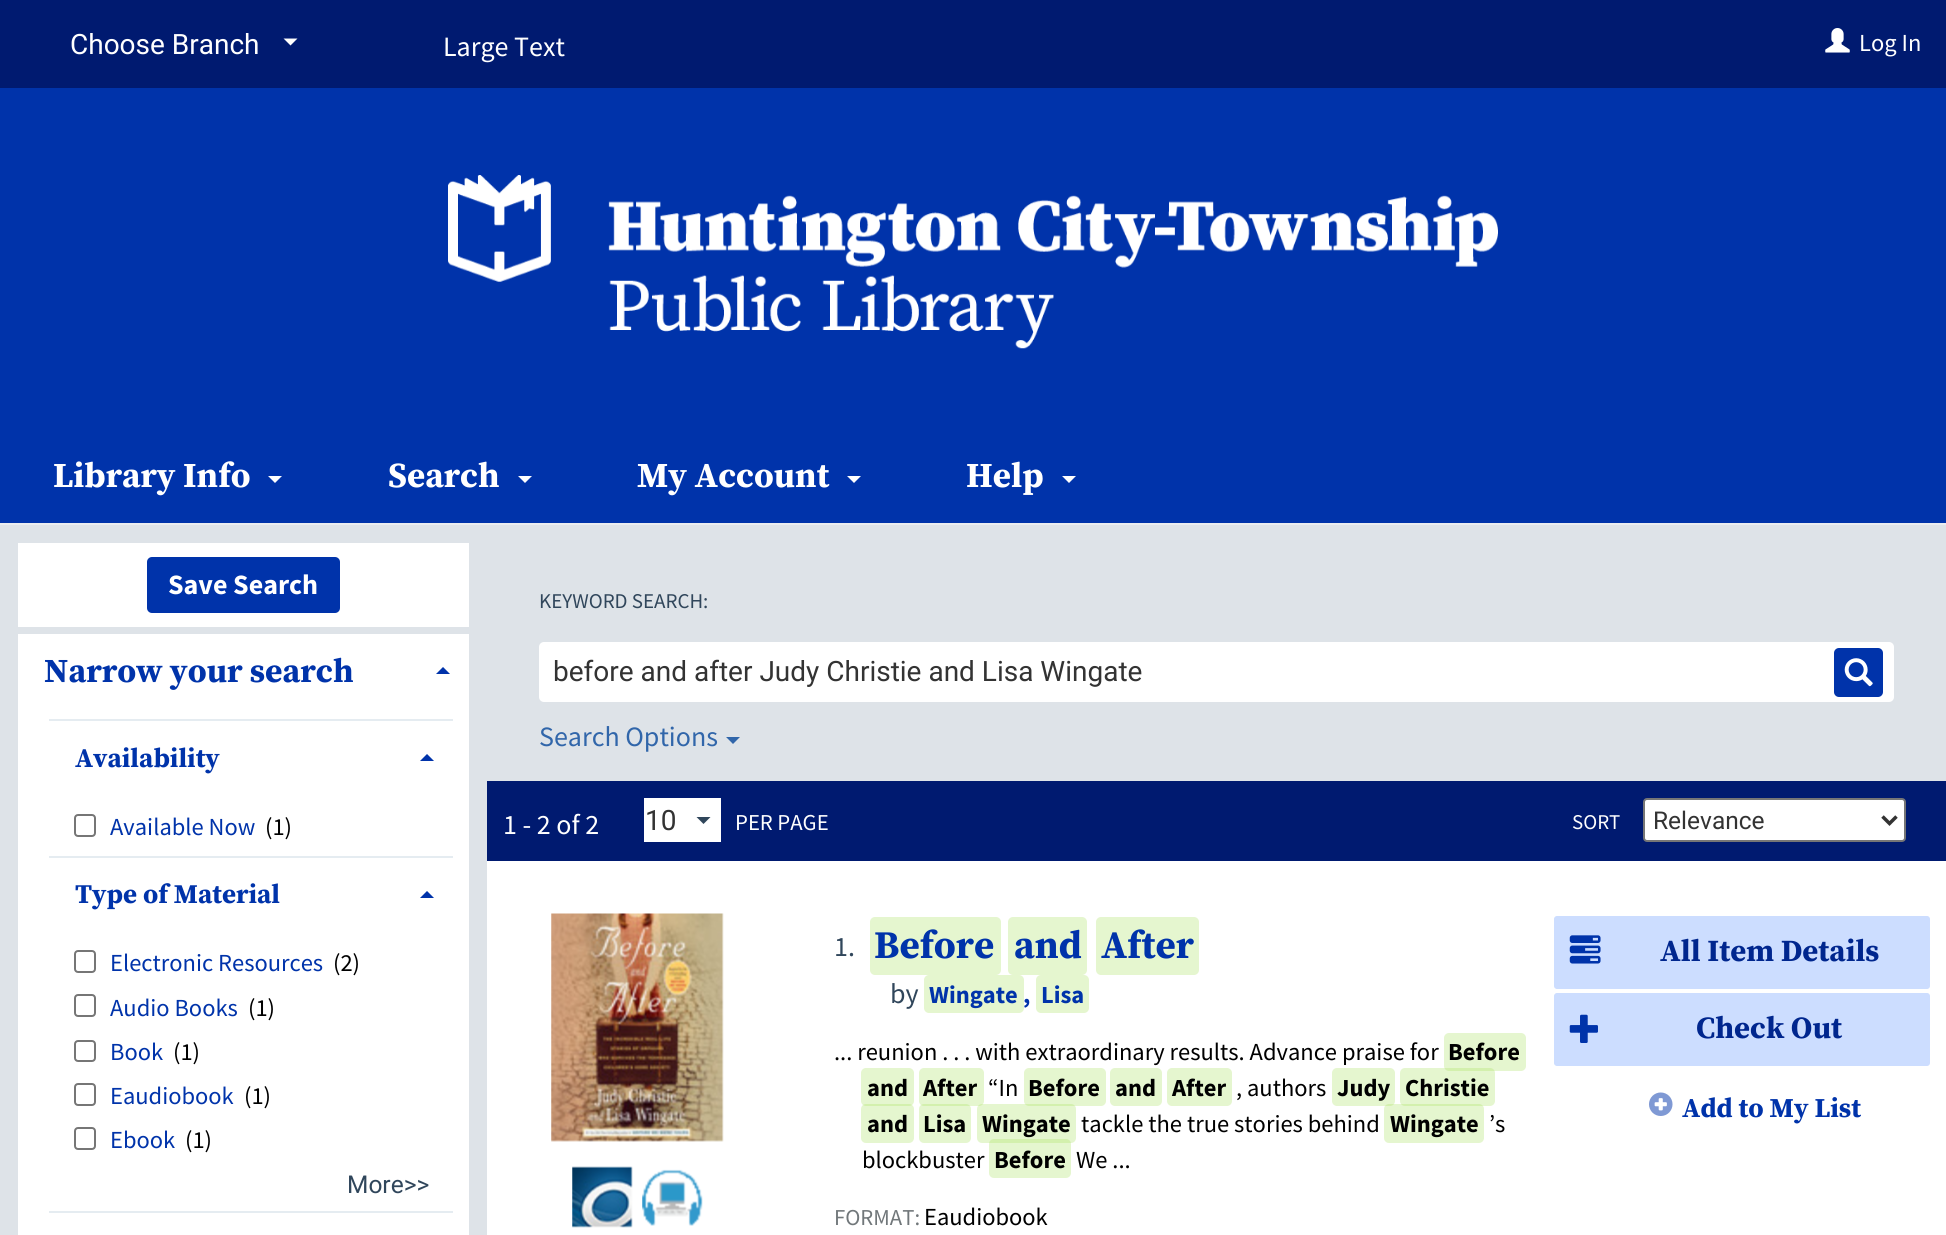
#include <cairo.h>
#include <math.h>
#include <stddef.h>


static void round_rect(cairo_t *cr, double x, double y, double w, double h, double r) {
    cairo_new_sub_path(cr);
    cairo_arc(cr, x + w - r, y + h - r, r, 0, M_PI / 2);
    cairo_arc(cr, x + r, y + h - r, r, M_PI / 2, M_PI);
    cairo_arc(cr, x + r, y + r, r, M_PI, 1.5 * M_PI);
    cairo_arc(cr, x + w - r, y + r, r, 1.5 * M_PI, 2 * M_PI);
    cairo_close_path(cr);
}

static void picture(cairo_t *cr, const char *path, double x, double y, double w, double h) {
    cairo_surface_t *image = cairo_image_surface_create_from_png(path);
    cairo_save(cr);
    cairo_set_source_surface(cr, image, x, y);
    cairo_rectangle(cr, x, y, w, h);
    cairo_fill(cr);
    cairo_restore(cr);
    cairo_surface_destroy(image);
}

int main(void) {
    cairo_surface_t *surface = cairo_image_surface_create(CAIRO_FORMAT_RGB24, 1946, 1235);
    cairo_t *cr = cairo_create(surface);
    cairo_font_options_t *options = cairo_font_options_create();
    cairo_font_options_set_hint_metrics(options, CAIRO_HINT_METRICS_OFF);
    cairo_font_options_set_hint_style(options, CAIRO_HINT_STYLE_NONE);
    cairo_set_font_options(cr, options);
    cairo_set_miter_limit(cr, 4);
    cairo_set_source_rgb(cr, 0, 0.102, 0.439);
    cairo_paint(cr);
    cairo_set_source_rgb(cr, 0.918, 0.929, 0.941);
    cairo_rectangle(cr, 0, 523, 1946, 2);
    cairo_fill(cr);
    cairo_select_font_face(cr, "Roboto", CAIRO_FONT_SLANT_NORMAL, CAIRO_FONT_WEIGHT_NORMAL);
    cairo_set_font_size(cr, 28);
    cairo_set_source_rgb(cr, 1, 1, 1);
    cairo_move_to(cr, 70, 54);
    cairo_show_text(cr, "Choose Branch");
    cairo_new_path(cr);
    cairo_move_to(cr, 283.5, 38.5);
    cairo_line_to(cr, 297.5, 38.5);
    cairo_line_to(cr, 290.5, 45.5);
    cairo_close_path(cr);
    cairo_fill(cr);
    cairo_select_font_face(cr, "Source Sans Pro", CAIRO_FONT_SLANT_NORMAL, CAIRO_FONT_WEIGHT_NORMAL);
    cairo_move_to(cr, 443, 56);
    cairo_show_text(cr, "Large Text");
    cairo_set_source_rgb(cr, 0, 0.2, 0.667);
    cairo_rectangle(cr, 0, 88, 1946, 435);
    cairo_fill(cr);
    cairo_select_font_face(cr, "Source Serif Pro", CAIRO_FONT_SLANT_NORMAL, CAIRO_FONT_WEIGHT_BOLD);
    cairo_set_font_size(cr, 35);
    cairo_set_source_rgb(cr, 1, 1, 1);
    cairo_move_to(cr, 53, 487);
    cairo_show_text(cr, "Library Info");
    cairo_new_path(cr);
    cairo_move_to(cr, 268, 476);
    cairo_line_to(cr, 282, 476);
    cairo_line_to(cr, 275, 483);
    cairo_close_path(cr);
    cairo_fill(cr);
    cairo_move_to(cr, 388, 487);
    cairo_show_text(cr, "Search");
    cairo_new_path(cr);
    cairo_move_to(cr, 518, 476);
    cairo_line_to(cr, 532, 476);
    cairo_line_to(cr, 525, 483);
    cairo_close_path(cr);
    cairo_fill(cr);
    cairo_move_to(cr, 637, 487);
    cairo_show_text(cr, "My Account");
    cairo_new_path(cr);
    cairo_move_to(cr, 847, 476);
    cairo_line_to(cr, 861, 476);
    cairo_line_to(cr, 854, 483);
    cairo_close_path(cr);
    cairo_fill(cr);
    cairo_move_to(cr, 966, 487);
    cairo_show_text(cr, "Help");
    cairo_new_path(cr);
    cairo_move_to(cr, 1062, 476);
    cairo_line_to(cr, 1076, 476);
    cairo_line_to(cr, 1069, 483);
    cairo_close_path(cr);
    cairo_fill(cr);
    picture(cr, "img1.png", 1825, 28, 25, 25);
    cairo_select_font_face(cr, "Source Sans Pro", CAIRO_FONT_SLANT_NORMAL, CAIRO_FONT_WEIGHT_NORMAL);
    cairo_set_font_size(cr, 24.5);
    cairo_move_to(cr, 1859, 51);
    cairo_show_text(cr, "Log In");
    picture(cr, "img2.png", 448, 175, 1050, 174);
    cairo_set_source_rgb(cr, 0.871, 0.89, 0.91);
    cairo_rectangle(cr, 0, 525, 487, 710);
    cairo_fill(cr);
    cairo_set_source_rgb(cr, 1, 1, 1);
    cairo_rectangle(cr, 18, 543, 451, 84);
    cairo_fill(cr);
    cairo_set_source_rgb(cr, 0, 0.2, 0.667);
    round_rect(cr, 147, 557, 193, 56, 5);
    cairo_fill(cr);
    cairo_select_font_face(cr, "Source Sans Pro", CAIRO_FONT_SLANT_NORMAL, CAIRO_FONT_WEIGHT_BOLD);
    cairo_set_font_size(cr, 28);
    cairo_set_source_rgb(cr, 1, 1, 1);
    cairo_move_to(cr, 168, 594);
    cairo_show_text(cr, "Save Search");
    cairo_rectangle(cr, 18, 634, 451, 601);
    cairo_fill(cr);
    cairo_select_font_face(cr, "Source Serif Pro", CAIRO_FONT_SLANT_NORMAL, CAIRO_FONT_WEIGHT_BOLD);
    cairo_set_font_size(cr, 33.5);
    cairo_set_source_rgb(cr, 0, 0.2, 0.667);
    cairo_move_to(cr, 44, 682);
    cairo_show_text(cr, "Narrow your search");
    cairo_new_path(cr);
    cairo_move_to(cr, 450, 674);
    cairo_line_to(cr, 436, 674);
    cairo_line_to(cr, 443, 667);
    cairo_close_path(cr);
    cairo_fill(cr);
    cairo_set_source_rgb(cr, 0.898, 0.922, 0.945);
    cairo_rectangle(cr, 49, 719, 404, 2);
    cairo_fill(cr);
    cairo_set_font_size(cr, 27);
    cairo_set_source_rgb(cr, 0, 0.2, 0.667);
    cairo_move_to(cr, 75, 767);
    cairo_show_text(cr, "Availability");
    cairo_new_path(cr);
    cairo_move_to(cr, 434, 761);
    cairo_line_to(cr, 420, 761);
    cairo_line_to(cr, 427, 754);
    cairo_close_path(cr);
    cairo_fill(cr);
    round_rect(cr, 75, 815, 20, 21, 3);
    cairo_set_source_rgb(cr, 0.463, 0.463, 0.463);
    cairo_stroke(cr);
    cairo_select_font_face(cr, "Source Sans Pro", CAIRO_FONT_SLANT_NORMAL, CAIRO_FONT_WEIGHT_NORMAL);
    cairo_set_font_size(cr, 24.5);
    cairo_set_source_rgb(cr, 0, 0.2, 0.667);
    cairo_move_to(cr, 110, 835);
    cairo_show_text(cr, "Available Now");
    cairo_set_source_rgb(cr, 0, 0, 0);
    cairo_move_to(cr, 265, 835);
    cairo_show_text(cr, "(1)");
    cairo_set_source_rgb(cr, 0.898, 0.922, 0.945);
    cairo_rectangle(cr, 49, 856, 404, 2);
    cairo_fill(cr);
    cairo_select_font_face(cr, "Source Serif Pro", CAIRO_FONT_SLANT_NORMAL, CAIRO_FONT_WEIGHT_BOLD);
    cairo_set_font_size(cr, 27);
    cairo_set_source_rgb(cr, 0, 0.2, 0.667);
    cairo_move_to(cr, 75, 903);
    cairo_show_text(cr, "Type of Material");
    cairo_new_path(cr);
    cairo_move_to(cr, 434, 898);
    cairo_line_to(cr, 420, 898);
    cairo_line_to(cr, 427, 891);
    cairo_close_path(cr);
    cairo_fill(cr);
    round_rect(cr, 75, 951, 20, 21, 3);
    cairo_set_source_rgb(cr, 0.463, 0.463, 0.463);
    cairo_stroke(cr);
    cairo_select_font_face(cr, "Source Sans Pro", CAIRO_FONT_SLANT_NORMAL, CAIRO_FONT_WEIGHT_NORMAL);
    cairo_set_font_size(cr, 24.5);
    cairo_set_source_rgb(cr, 0, 0.2, 0.667);
    cairo_move_to(cr, 110, 971);
    cairo_show_text(cr, "Electronic Resources");
    cairo_set_source_rgb(cr, 0, 0, 0);
    cairo_move_to(cr, 333, 971);
    cairo_show_text(cr, "(2)");
    round_rect(cr, 75, 995, 20, 21, 3);
    cairo_set_source_rgb(cr, 0.463, 0.463, 0.463);
    cairo_stroke(cr);
    cairo_set_source_rgb(cr, 0, 0.2, 0.667);
    cairo_move_to(cr, 110, 1016);
    cairo_show_text(cr, "Audio Books");
    cairo_set_source_rgb(cr, 0, 0, 0);
    cairo_move_to(cr, 248, 1016);
    cairo_show_text(cr, "(1)");
    round_rect(cr, 75, 1041, 20, 20, 3);
    cairo_set_source_rgb(cr, 0.463, 0.463, 0.463);
    cairo_stroke(cr);
    cairo_set_source_rgb(cr, 0, 0.2, 0.667);
    cairo_move_to(cr, 110, 1060);
    cairo_show_text(cr, "Book");
    cairo_set_source_rgb(cr, 0, 0, 0);
    cairo_move_to(cr, 173, 1060);
    cairo_show_text(cr, "(1)");
    round_rect(cr, 75, 1084, 20, 21, 3);
    cairo_set_source_rgb(cr, 0.463, 0.463, 0.463);
    cairo_stroke(cr);
    cairo_set_source_rgb(cr, 0, 0.2, 0.667);
    cairo_move_to(cr, 110, 1104);
    cairo_show_text(cr, "Eaudiobook");
    cairo_set_source_rgb(cr, 0, 0, 0);
    cairo_move_to(cr, 244, 1104);
    cairo_show_text(cr, "(1)");
    round_rect(cr, 75, 1128, 20, 21, 3);
    cairo_set_source_rgb(cr, 0.463, 0.463, 0.463);
    cairo_stroke(cr);
    cairo_set_source_rgb(cr, 0, 0.2, 0.667);
    cairo_move_to(cr, 110, 1148);
    cairo_show_text(cr, "Ebook");
    cairo_set_source_rgb(cr, 0, 0, 0);
    cairo_move_to(cr, 185, 1148);
    cairo_show_text(cr, "(1)");
    cairo_select_font_face(cr, "Roboto", CAIRO_FONT_SLANT_NORMAL, CAIRO_FONT_WEIGHT_NORMAL);
    cairo_set_source_rgb(cr, 0.188, 0.275, 0.357);
    cairo_move_to(cr, 347, 1193);
    cairo_show_text(cr, "More>>");
    cairo_set_source_rgb(cr, 0.898, 0.922, 0.945);
    cairo_rectangle(cr, 49, 1211, 404, 2);
    cairo_fill(cr);
    cairo_set_source_rgb(cr, 1, 1, 1);
    cairo_rectangle(cr, 487, 861, 1459, 374);
    cairo_fill(cr);
    cairo_set_source_rgb(cr, 0.871, 0.89, 0.91);
    cairo_rectangle(cr, 487, 525, 1459, 256);
    cairo_fill(cr);
    cairo_select_font_face(cr, "Source Sans Pro", CAIRO_FONT_SLANT_NORMAL, CAIRO_FONT_WEIGHT_NORMAL);
    cairo_set_font_size(cr, 21);
    cairo_set_source_rgb(cr, 0.188, 0.275, 0.357);
    cairo_move_to(cr, 539, 608);
    cairo_show_text(cr, "KEYWORD SEARCH:");
    cairo_set_source_rgb(cr, 1, 1, 1);
    round_rect(cr, 539, 642, 1355, 60, 5);
    cairo_fill(cr);
    cairo_select_font_face(cr, "Roboto", CAIRO_FONT_SLANT_NORMAL, CAIRO_FONT_WEIGHT_NORMAL);
    cairo_set_font_size(cr, 28);
    cairo_set_source_rgb(cr, 0.2, 0.2, 0.2);
    cairo_move_to(cr, 553, 681);
    cairo_show_text(cr, "before and after Judy Christie and Lisa Wingate");
    cairo_set_source_rgb(cr, 0, 0.2, 0.667);
    round_rect(cr, 1834, 648, 49, 49, 5);
    cairo_fill(cr);
    picture(cr, "img3.png", 1844, 658, 29, 29);
    cairo_select_font_face(cr, "Source Sans Pro", CAIRO_FONT_SLANT_NORMAL, CAIRO_FONT_WEIGHT_NORMAL);
    cairo_set_source_rgb(cr, 0.192, 0.4, 0.667);
    cairo_move_to(cr, 539, 746);
    cairo_show_text(cr, "Search Options");
    cairo_new_path(cr);
    cairo_move_to(cr, 726, 737);
    cairo_line_to(cr, 740, 737);
    cairo_line_to(cr, 733, 744);
    cairo_close_path(cr);
    cairo_fill(cr);
    cairo_set_source_rgb(cr, 1, 1, 1);
    cairo_move_to(cr, 503, 834);
    cairo_show_text(cr, "1 - 2 of 2");
    cairo_rectangle(cr, 644, 798, 77, 44);
    cairo_fill(cr);
    cairo_select_font_face(cr, "Roboto", CAIRO_FONT_SLANT_NORMAL, CAIRO_FONT_WEIGHT_NORMAL);
    cairo_set_source_rgb(cr, 0.2, 0.2, 0.2);
    cairo_move_to(cr, 645, 830);
    cairo_show_text(cr, "10");
    cairo_set_source_rgb(cr, 0.188, 0.275, 0.357);
    cairo_new_path(cr);
    cairo_move_to(cr, 696.5, 817);
    cairo_line_to(cr, 710.5, 817);
    cairo_line_to(cr, 703.5, 824);
    cairo_close_path(cr);
    cairo_fill(cr);
    cairo_select_font_face(cr, "Source Sans Pro", CAIRO_FONT_SLANT_NORMAL, CAIRO_FONT_WEIGHT_NORMAL);
    cairo_set_font_size(cr, 22.75);
    cairo_set_source_rgb(cr, 1, 1, 1);
    cairo_move_to(cr, 735, 830);
    cairo_show_text(cr, "PER PAGE");
    cairo_set_font_size(cr, 21);
    cairo_move_to(cr, 1572, 829);
    cairo_show_text(cr, "SORT");
    round_rect(cr, 1644, 799, 261, 42, 3);
    cairo_fill_preserve(cr);
    cairo_set_source_rgb(cr, 0.463, 0.463, 0.463);
    cairo_stroke(cr);
    cairo_new_path(cr);
    cairo_move_to(cr, 1882.5, 816.5);
    cairo_line_to(cr, 1889.5, 823.5);
    cairo_line_to(cr, 1896.5, 816.5);
    cairo_set_source_rgb(cr, 0.2, 0.2, 0.2);
    cairo_set_line_width(cr, 3.5);
    cairo_stroke(cr);
    cairo_select_font_face(cr, "Roboto", CAIRO_FONT_SLANT_NORMAL, CAIRO_FONT_WEIGHT_NORMAL);
    cairo_set_font_size(cr, 24.5);
    cairo_move_to(cr, 1653, 829);
    cairo_show_text(cr, "Relevance");
    picture(cr, "img4.png", 551, 913, 173, 229);
    picture(cr, "img5.png", 572, 1166, 61, 62);
    picture(cr, "img6.png", 642, 1169, 61, 57);
    cairo_select_font_face(cr, "Source Sans Pro", CAIRO_FONT_SLANT_NORMAL, CAIRO_FONT_WEIGHT_NORMAL);
    cairo_set_font_size(cr, 28);
    cairo_set_source_rgb(cr, 0.188, 0.275, 0.357);
    cairo_move_to(cr, 834, 956);
    cairo_show_text(cr, "1.");
    cairo_set_source_rgb(cr, 0.898, 0.961, 0.812);
    round_rect(cr, 870, 917, 131, 58, 5);
    cairo_fill(cr);
    cairo_select_font_face(cr, "Source Serif Pro", CAIRO_FONT_SLANT_NORMAL, CAIRO_FONT_WEIGHT_BOLD);
    cairo_set_font_size(cr, 39);
    cairo_set_source_rgb(cr, 0, 0.2, 0.667);
    cairo_move_to(cr, 874, 958);
    cairo_show_text(cr, "Before");
    cairo_set_source_rgb(cr, 0.898, 0.961, 0.812);
    round_rect(cr, 1008, 917, 79, 58, 5);
    cairo_fill(cr);
    cairo_set_source_rgb(cr, 0, 0.2, 0.667);
    cairo_move_to(cr, 1014, 958);
    cairo_show_text(cr, "and");
    cairo_set_source_rgb(cr, 0.898, 0.961, 0.812);
    round_rect(cr, 1096, 917, 103, 58, 5);
    cairo_fill(cr);
    cairo_set_source_rgb(cr, 0, 0.2, 0.667);
    cairo_move_to(cr, 1101, 958);
    cairo_show_text(cr, "After");
    cairo_select_font_face(cr, "Source Sans Pro", CAIRO_FONT_SLANT_NORMAL, CAIRO_FONT_WEIGHT_NORMAL);
    cairo_set_font_size(cr, 28);
    cairo_set_source_rgb(cr, 0.188, 0.275, 0.357);
    cairo_move_to(cr, 890, 1003);
    cairo_show_text(cr, "by");
    cairo_set_source_rgb(cr, 0.898, 0.961, 0.812);
    round_rect(cr, 924, 975, 100, 38, 5);
    cairo_fill(cr);
    cairo_select_font_face(cr, "Source Sans Pro", CAIRO_FONT_SLANT_NORMAL, CAIRO_FONT_WEIGHT_BOLD);
    cairo_set_font_size(cr, 24.5);
    cairo_set_source_rgb(cr, 0, 0.2, 0.667);
    cairo_move_to(cr, 929, 1003);
    cairo_show_text(cr, "Wingate");
    cairo_move_to(cr, 1023, 1003);
    cairo_show_text(cr, ",");
    cairo_set_source_rgb(cr, 0.898, 0.961, 0.812);
    round_rect(cr, 1036, 975, 53, 38, 5);
    cairo_fill(cr);
    cairo_set_source_rgb(cr, 0, 0.2, 0.667);
    cairo_move_to(cr, 1041, 1003);
    cairo_show_text(cr, "Lisa");
    cairo_select_font_face(cr, "Source Sans Pro", CAIRO_FONT_SLANT_NORMAL, CAIRO_FONT_WEIGHT_NORMAL);
    cairo_set_source_rgb(cr, 0, 0, 0);
    cairo_move_to(cr, 834, 1060);
    cairo_show_text(cr, "... reunion . . . with extraordinary results. Advance praise for");
    cairo_set_source_rgb(cr, 0.898, 0.961, 0.812);
    round_rect(cr, 1444, 1033, 82, 38, 5);
    cairo_fill(cr);
    cairo_select_font_face(cr, "Source Sans Pro", CAIRO_FONT_SLANT_NORMAL, CAIRO_FONT_WEIGHT_BOLD);
    cairo_set_source_rgb(cr, 0, 0, 0);
    cairo_move_to(cr, 1448, 1060);
    cairo_show_text(cr, "Before");
    cairo_set_source_rgb(cr, 0.898, 0.961, 0.812);
    round_rect(cr, 861, 1068, 53, 38, 5);
    cairo_fill(cr);
    cairo_set_source_rgb(cr, 0, 0, 0);
    cairo_move_to(cr, 867, 1096);
    cairo_show_text(cr, "and");
    cairo_set_source_rgb(cr, 0.898, 0.961, 0.812);
    round_rect(cr, 919, 1068, 65, 38, 5);
    cairo_fill(cr);
    cairo_set_source_rgb(cr, 0, 0, 0);
    cairo_move_to(cr, 923, 1096);
    cairo_show_text(cr, "After");
    cairo_select_font_face(cr, "Source Sans Pro", CAIRO_FONT_SLANT_NORMAL, CAIRO_FONT_WEIGHT_NORMAL);
    cairo_move_to(cr, 988, 1096);
    cairo_show_text(cr, "“In");
    cairo_set_source_rgb(cr, 0.898, 0.961, 0.812);
    round_rect(cr, 1024, 1068, 82, 38, 5);
    cairo_fill(cr);
    cairo_select_font_face(cr, "Source Sans Pro", CAIRO_FONT_SLANT_NORMAL, CAIRO_FONT_WEIGHT_BOLD);
    cairo_set_source_rgb(cr, 0, 0, 0);
    cairo_move_to(cr, 1028, 1096);
    cairo_show_text(cr, "Before");
    cairo_set_source_rgb(cr, 0.898, 0.961, 0.812);
    round_rect(cr, 1110, 1068, 52, 38, 5);
    cairo_fill(cr);
    cairo_set_source_rgb(cr, 0, 0, 0);
    cairo_move_to(cr, 1115, 1096);
    cairo_show_text(cr, "and");
    cairo_set_source_rgb(cr, 0.898, 0.961, 0.812);
    round_rect(cr, 1167, 1068, 65, 38, 5);
    cairo_fill(cr);
    cairo_set_source_rgb(cr, 0, 0, 0);
    cairo_move_to(cr, 1172, 1096);
    cairo_show_text(cr, "After");
    cairo_select_font_face(cr, "Source Sans Pro", CAIRO_FONT_SLANT_NORMAL, CAIRO_FONT_WEIGHT_NORMAL);
    cairo_move_to(cr, 1236, 1096);
    cairo_show_text(cr, ", authors");
    cairo_set_source_rgb(cr, 0.898, 0.961, 0.812);
    round_rect(cr, 1332, 1068, 63, 38, 5);
    cairo_fill(cr);
    cairo_select_font_face(cr, "Source Sans Pro", CAIRO_FONT_SLANT_NORMAL, CAIRO_FONT_WEIGHT_BOLD);
    cairo_set_source_rgb(cr, 0, 0, 0);
    cairo_move_to(cr, 1337, 1096);
    cairo_show_text(cr, "Judy");
    cairo_set_source_rgba(cr, 0.655, 0.875, 0.369, 0.3);
    round_rect(cr, 1400, 1068, 95, 38, 5);
    cairo_fill(cr);
    cairo_set_source_rgb(cr, 0, 0, 0);
    cairo_move_to(cr, 1405, 1096);
    cairo_show_text(cr, "Christie");
    cairo_set_source_rgba(cr, 0.655, 0.875, 0.369, 0.3);
    round_rect(cr, 861, 1104, 53, 39, 5);
    cairo_fill(cr);
    cairo_set_source_rgb(cr, 0, 0, 0);
    cairo_move_to(cr, 867, 1132);
    cairo_show_text(cr, "and");
    cairo_set_source_rgba(cr, 0.655, 0.875, 0.369, 0.3);
    round_rect(cr, 919, 1104, 52, 39, 5);
    cairo_fill(cr);
    cairo_set_source_rgb(cr, 0, 0, 0);
    cairo_move_to(cr, 923, 1132);
    cairo_show_text(cr, "Lisa");
    cairo_set_source_rgba(cr, 0.655, 0.875, 0.369, 0.3);
    round_rect(cr, 977, 1104, 99, 39, 5);
    cairo_fill(cr);
    cairo_set_source_rgb(cr, 0, 0, 0);
    cairo_move_to(cr, 982, 1132);
    cairo_show_text(cr, "Wingate");
    cairo_select_font_face(cr, "Source Sans Pro", CAIRO_FONT_SLANT_NORMAL, CAIRO_FONT_WEIGHT_NORMAL);
    cairo_move_to(cr, 1081, 1132);
    cairo_show_text(cr, "tackle the true stories behind");
    cairo_set_source_rgba(cr, 0.655, 0.875, 0.369, 0.3);
    round_rect(cr, 1384, 1104, 100, 39, 5);
    cairo_fill(cr);
    cairo_select_font_face(cr, "Source Sans Pro", CAIRO_FONT_SLANT_NORMAL, CAIRO_FONT_WEIGHT_BOLD);
    cairo_set_source_rgb(cr, 0, 0, 0);
    cairo_move_to(cr, 1390, 1132);
    cairo_show_text(cr, "Wingate");
    cairo_select_font_face(cr, "Source Sans Pro", CAIRO_FONT_SLANT_NORMAL, CAIRO_FONT_WEIGHT_NORMAL);
    cairo_move_to(cr, 1489, 1132);
    cairo_show_text(cr, "’s");
    cairo_move_to(cr, 862, 1168);
    cairo_show_text(cr, "blockbuster");
    cairo_set_source_rgba(cr, 0.655, 0.875, 0.369, 0.3);
    round_rect(cr, 989, 1139, 82, 39, 5);
    cairo_fill(cr);
    cairo_select_font_face(cr, "Source Sans Pro", CAIRO_FONT_SLANT_NORMAL, CAIRO_FONT_WEIGHT_BOLD);
    cairo_set_source_rgb(cr, 0, 0, 0);
    cairo_move_to(cr, 994, 1168);
    cairo_show_text(cr, "Before");
    cairo_select_font_face(cr, "Source Sans Pro", CAIRO_FONT_SLANT_NORMAL, CAIRO_FONT_WEIGHT_NORMAL);
    cairo_move_to(cr, 1076, 1168);
    cairo_show_text(cr, "We ...");
    cairo_set_font_size(cr, 22.75);
    cairo_set_source_rgb(cr, 0.443, 0.467, 0.478);
    cairo_move_to(cr, 834, 1225);
    cairo_show_text(cr, "FORMAT:");
    cairo_set_font_size(cr, 24.5);
    cairo_set_source_rgb(cr, 0, 0, 0);
    cairo_move_to(cr, 924, 1225);
    cairo_show_text(cr, "Eaudiobook");
    cairo_set_source_rgb(cr, 0.8, 0.867, 1);
    round_rect(cr, 1553, 915, 378, 75, 4);
    cairo_fill_preserve(cr);
    cairo_set_source_rgb(cr, 1, 1, 1);
    cairo_set_line_width(cr, 2);
    cairo_stroke(cr);
    picture(cr, "img7.png", 1569, 935, 32, 29);
    cairo_select_font_face(cr, "Source Serif Pro", CAIRO_FONT_SLANT_NORMAL, CAIRO_FONT_WEIGHT_BOLD);
    cairo_set_font_size(cr, 30.75);
    cairo_set_source_rgb(cr, 0, 0.149, 0.557);
    cairo_move_to(cr, 1660, 961);
    cairo_show_text(cr, "All Item Details");
    cairo_set_source_rgb(cr, 0.8, 0.867, 1);
    round_rect(cr, 1553, 992, 378, 75, 4);
    cairo_fill_preserve(cr);
    cairo_set_source_rgb(cr, 1, 1, 1);
    cairo_stroke(cr);
    picture(cr, "img8.png", 1569, 1014, 29, 29);
    cairo_set_source_rgb(cr, 0, 0.149, 0.557);
    cairo_move_to(cr, 1696, 1038);
    cairo_show_text(cr, "Check Out");
    picture(cr, "img9.png", 1649, 1092, 24, 24);
    cairo_set_font_size(cr, 27.25);
    cairo_set_source_rgb(cr, 0, 0.2, 0.667);
    cairo_move_to(cr, 1682, 1117);
    cairo_show_text(cr, "Add to My List");
    cairo_surface_write_to_png(surface, "page.png");
    cairo_font_options_destroy(options);
    cairo_destroy(cr);
    cairo_surface_destroy(surface);
    return 0;
}
